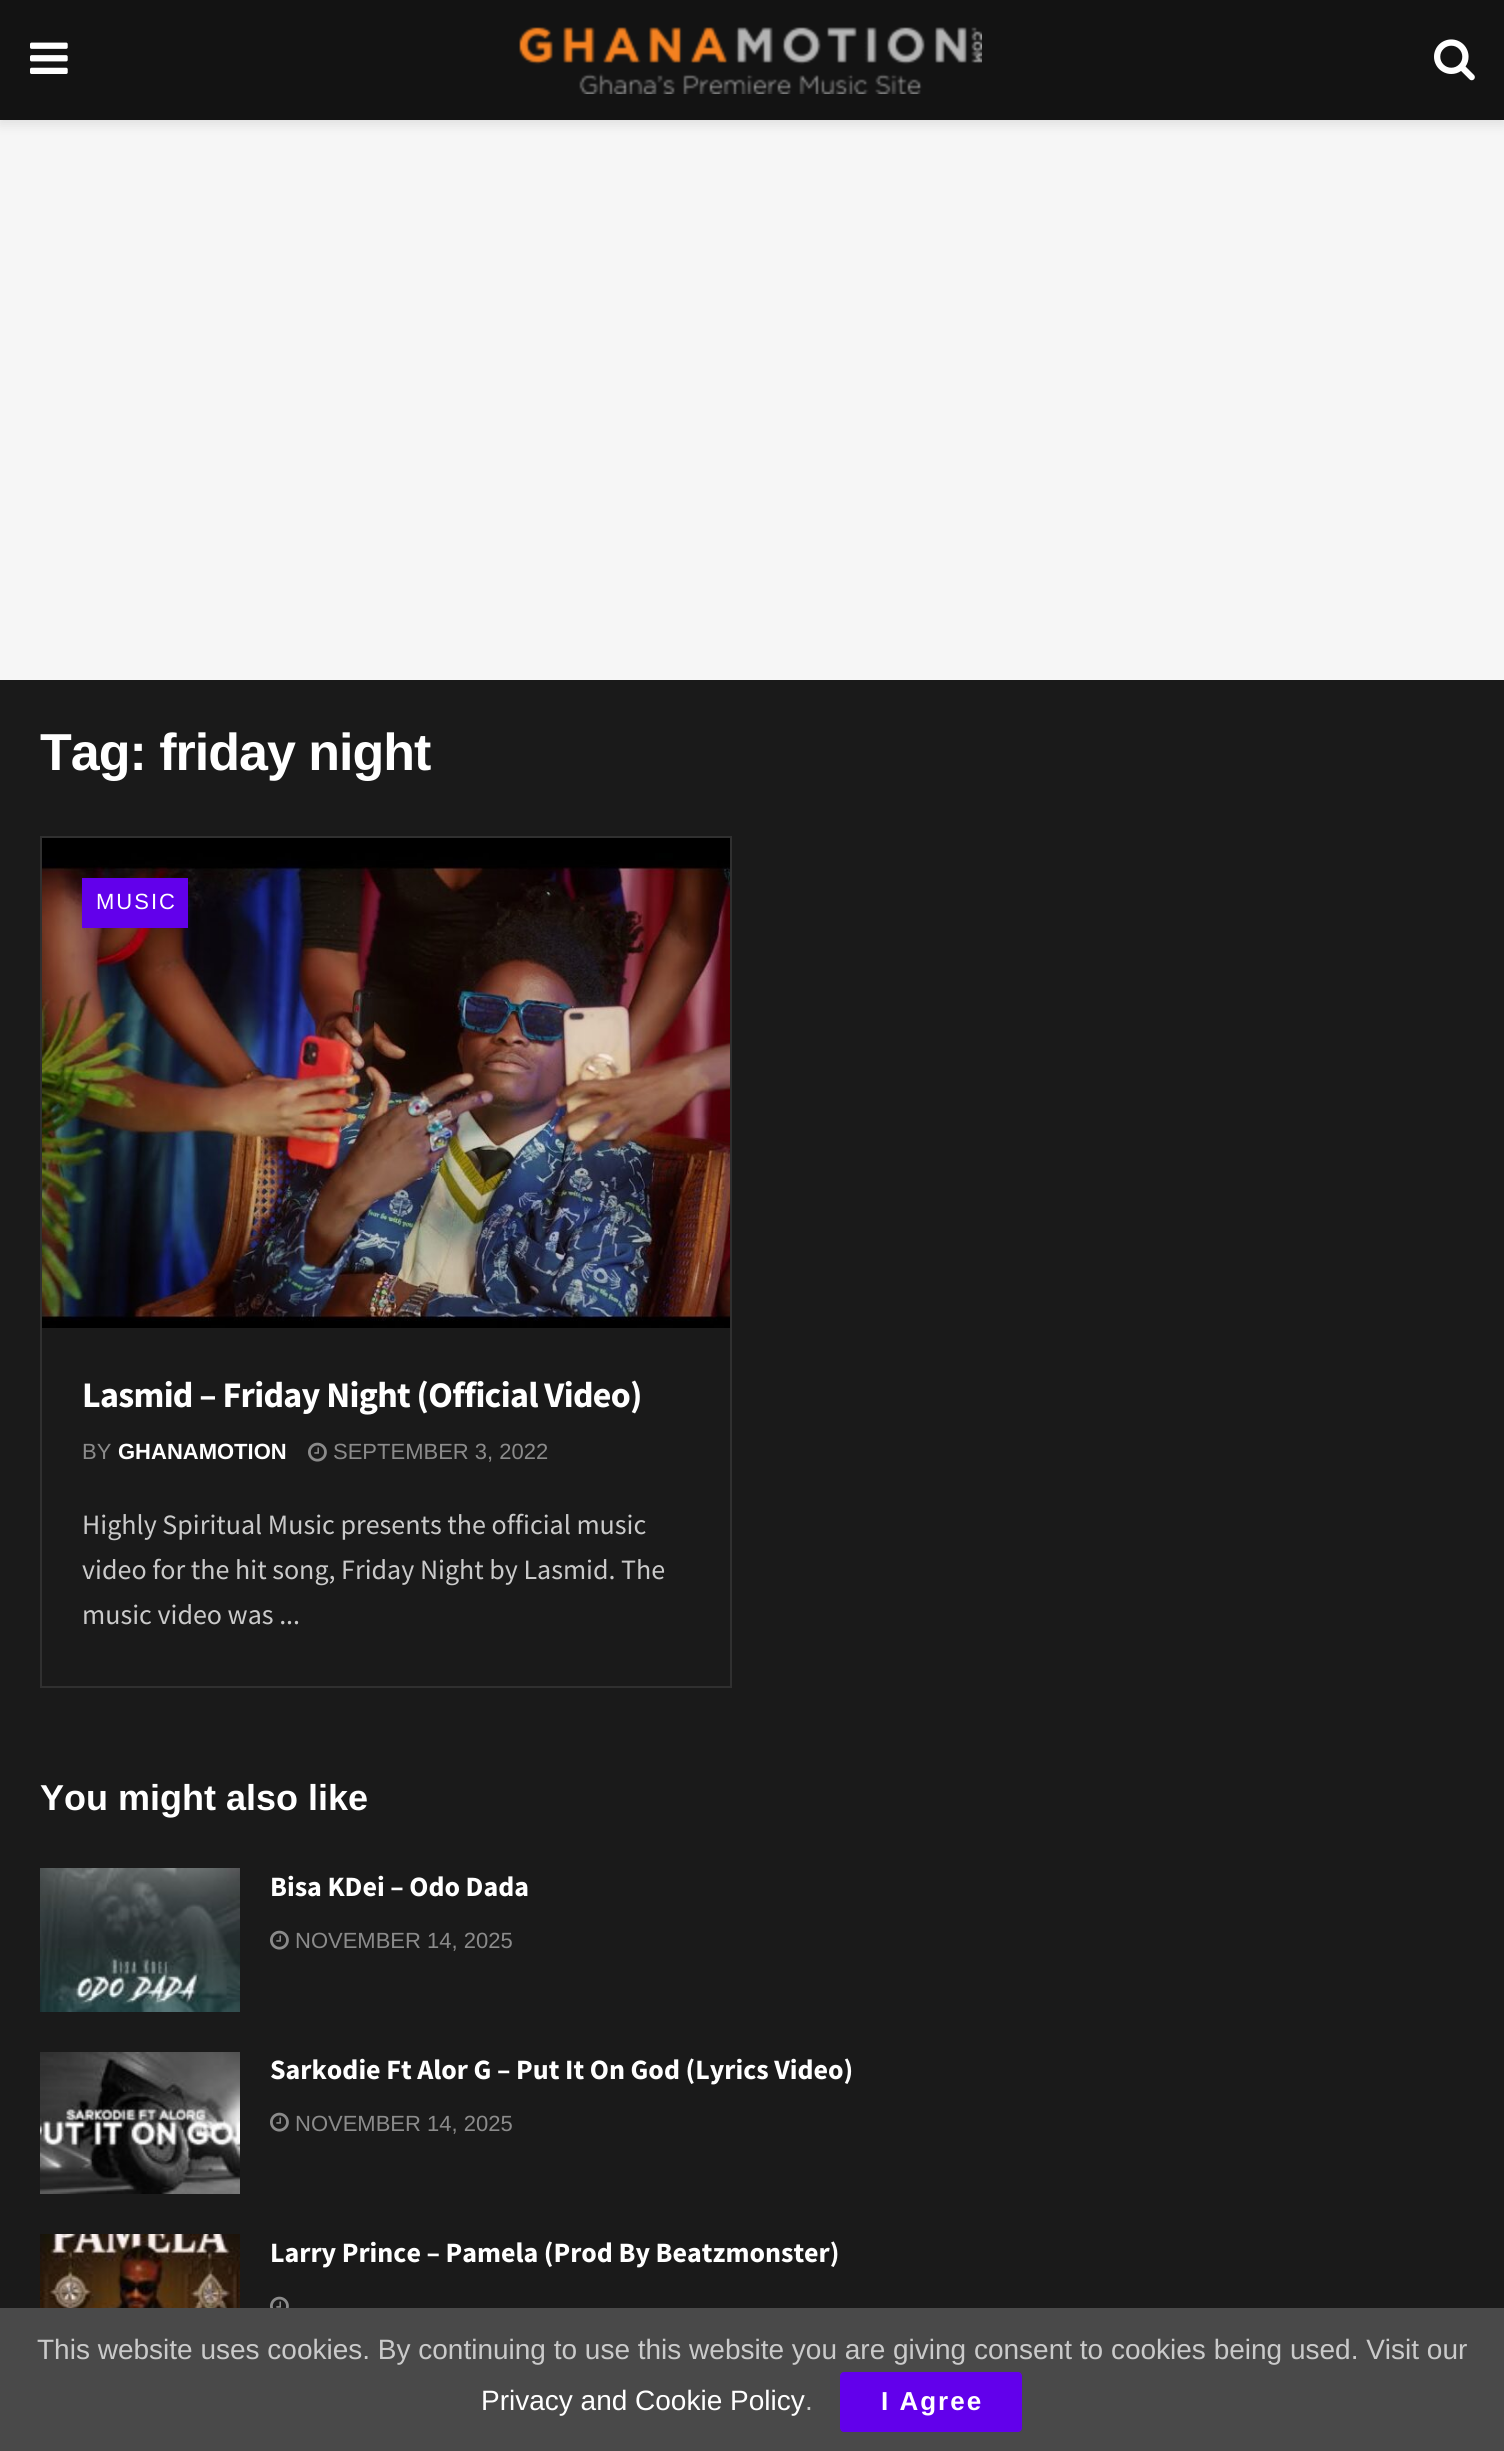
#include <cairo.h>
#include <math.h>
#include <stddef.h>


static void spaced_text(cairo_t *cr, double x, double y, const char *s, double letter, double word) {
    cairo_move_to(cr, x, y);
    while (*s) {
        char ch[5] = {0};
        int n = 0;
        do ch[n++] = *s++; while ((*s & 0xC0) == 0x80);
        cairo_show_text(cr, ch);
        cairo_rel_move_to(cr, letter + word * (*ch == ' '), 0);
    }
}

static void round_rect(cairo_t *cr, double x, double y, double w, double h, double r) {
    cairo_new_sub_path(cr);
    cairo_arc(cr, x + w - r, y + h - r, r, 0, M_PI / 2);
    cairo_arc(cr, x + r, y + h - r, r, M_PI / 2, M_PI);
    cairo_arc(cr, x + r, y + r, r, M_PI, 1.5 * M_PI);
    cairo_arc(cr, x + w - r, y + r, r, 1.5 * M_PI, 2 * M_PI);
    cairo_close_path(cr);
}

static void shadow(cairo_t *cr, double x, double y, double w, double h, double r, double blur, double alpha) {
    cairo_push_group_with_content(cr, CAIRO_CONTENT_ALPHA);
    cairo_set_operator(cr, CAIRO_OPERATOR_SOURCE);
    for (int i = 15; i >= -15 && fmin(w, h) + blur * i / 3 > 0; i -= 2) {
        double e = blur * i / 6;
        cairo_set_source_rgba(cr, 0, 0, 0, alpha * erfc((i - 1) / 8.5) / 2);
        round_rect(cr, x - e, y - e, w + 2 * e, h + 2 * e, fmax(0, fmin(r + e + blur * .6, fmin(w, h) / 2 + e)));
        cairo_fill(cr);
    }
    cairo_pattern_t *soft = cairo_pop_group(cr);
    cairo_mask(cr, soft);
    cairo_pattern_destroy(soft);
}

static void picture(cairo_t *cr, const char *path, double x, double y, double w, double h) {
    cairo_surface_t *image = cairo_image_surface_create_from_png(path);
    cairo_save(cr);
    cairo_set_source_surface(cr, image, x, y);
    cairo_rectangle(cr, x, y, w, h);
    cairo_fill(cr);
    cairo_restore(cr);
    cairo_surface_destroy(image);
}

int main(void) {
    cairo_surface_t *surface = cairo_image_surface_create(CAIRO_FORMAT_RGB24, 1504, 2451);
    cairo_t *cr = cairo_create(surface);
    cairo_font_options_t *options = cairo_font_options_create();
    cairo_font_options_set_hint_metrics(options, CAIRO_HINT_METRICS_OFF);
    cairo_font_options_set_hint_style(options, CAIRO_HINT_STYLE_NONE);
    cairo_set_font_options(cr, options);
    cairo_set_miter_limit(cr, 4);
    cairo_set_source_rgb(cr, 0.102, 0.102, 0.102);
    cairo_paint(cr);
    cairo_set_source_rgb(cr, 0.961, 0.961, 0.961);
    cairo_rectangle(cr, 0, 120, 1504, 560);
    cairo_fill(cr);
    cairo_set_source_rgb(cr, 0, 0, 0);
    shadow(cr, 0, 4, 1504, 120, 0, 6, 0.1);
    cairo_set_source_rgb(cr, 0.075, 0.075, 0.075);
    cairo_rectangle(cr, 0, 0, 1504, 120);
    cairo_fill(cr);
    picture(cr, "img1.png", 30, 42, 38, 32);
    picture(cr, "img2.png", 519, 27, 463, 67);
    picture(cr, "img3.png", 1434, 39, 41, 42);
    cairo_select_font_face(cr, "Liberation Sans", CAIRO_FONT_SLANT_NORMAL, CAIRO_FONT_WEIGHT_BOLD);
    cairo_set_font_size(cr, 52);
    cairo_set_source_rgb(cr, 1, 1, 1);
    spaced_text(cr, 40, 770, "Tag: friday night", -1, 0);
    cairo_rectangle(cr, 41, 837, 690, 850);
    cairo_set_source_rgb(cr, 0.188, 0.188, 0.188);
    cairo_stroke(cr);
    picture(cr, "img4.png", 42, 838, 688, 490);
    cairo_set_source_rgb(cr, 0.384, 0, 0.918);
    cairo_rectangle(cr, 82, 878, 106, 50);
    cairo_fill(cr);
    cairo_select_font_face(cr, "Liberation Sans", CAIRO_FONT_SLANT_NORMAL, CAIRO_FONT_WEIGHT_NORMAL);
    cairo_set_font_size(cr, 22);
    cairo_set_source_rgb(cr, 1, 1, 1);
    spaced_text(cr, 96, 909, "MUSIC", 2, 0);
    cairo_select_font_face(cr, "Source Sans Pro", CAIRO_FONT_SLANT_NORMAL, CAIRO_FONT_WEIGHT_BOLD);
    cairo_set_font_size(cr, 36);
    spaced_text(cr, 82, 1407, "Lasmid – Friday Night (Official Video)", -0.7, 0);
    cairo_select_font_face(cr, "Liberation Sans", CAIRO_FONT_SLANT_NORMAL, CAIRO_FONT_WEIGHT_NORMAL);
    cairo_set_font_size(cr, 22);
    cairo_set_source_rgb(cr, 0.545, 0.545, 0.545);
    cairo_move_to(cr, 82, 1459);
    cairo_show_text(cr, "BY");
    cairo_select_font_face(cr, "Liberation Sans", CAIRO_FONT_SLANT_NORMAL, CAIRO_FONT_WEIGHT_BOLD);
    cairo_set_source_rgb(cr, 1, 1, 1);
    cairo_move_to(cr, 118, 1459);
    cairo_show_text(cr, "GHANAMOTION");
    picture(cr, "img5.png", 308, 1442, 19, 20);
    cairo_select_font_face(cr, "Liberation Sans", CAIRO_FONT_SLANT_NORMAL, CAIRO_FONT_WEIGHT_NORMAL);
    cairo_set_source_rgb(cr, 0.545, 0.545, 0.545);
    cairo_move_to(cr, 333, 1459);
    cairo_show_text(cr, "SEPTEMBER 3, 2022");
    cairo_select_font_face(cr, "Source Sans Pro", CAIRO_FONT_SLANT_NORMAL, CAIRO_FONT_WEIGHT_NORMAL);
    cairo_set_font_size(cr, 28);
    cairo_set_source_rgb(cr, 0.792, 0.792, 0.792);
    cairo_move_to(cr, 82, 1534);
    cairo_show_text(cr, "Highly Spiritual Music presents the official music");
    cairo_move_to(cr, 82, 1579);
    cairo_show_text(cr, "video for the hit song, Friday Night by Lasmid. The");
    cairo_move_to(cr, 82, 1624);
    cairo_show_text(cr, "music video was ...");
    cairo_select_font_face(cr, "Liberation Sans", CAIRO_FONT_SLANT_NORMAL, CAIRO_FONT_WEIGHT_BOLD);
    cairo_set_font_size(cr, 36);
    cairo_set_source_rgb(cr, 1, 1, 1);
    cairo_move_to(cr, 40, 1810);
    cairo_show_text(cr, "You might also like");
    picture(cr, "img6.png", 40, 1868, 200, 144);
    cairo_select_font_face(cr, "Source Sans Pro", CAIRO_FONT_SLANT_NORMAL, CAIRO_FONT_WEIGHT_BOLD);
    cairo_set_font_size(cr, 28);
    cairo_move_to(cr, 270, 1896);
    cairo_show_text(cr, "Bisa KDei – Odo Dada");
    picture(cr, "img5.png", 270, 1930, 19, 20);
    cairo_select_font_face(cr, "Liberation Sans", CAIRO_FONT_SLANT_NORMAL, CAIRO_FONT_WEIGHT_NORMAL);
    cairo_set_font_size(cr, 22);
    cairo_set_source_rgb(cr, 0.545, 0.545, 0.545);
    cairo_move_to(cr, 295, 1948);
    cairo_show_text(cr, "NOVEMBER 14, 2025");
    picture(cr, "img7.png", 40, 2052, 200, 142);
    cairo_select_font_face(cr, "Source Sans Pro", CAIRO_FONT_SLANT_NORMAL, CAIRO_FONT_WEIGHT_BOLD);
    cairo_set_font_size(cr, 28);
    cairo_set_source_rgb(cr, 1, 1, 1);
    cairo_move_to(cr, 270, 2079);
    cairo_show_text(cr, "Sarkodie Ft Alor G – Put It On God (Lyrics Video)");
    picture(cr, "img5.png", 270, 2112, 19, 20);
    cairo_select_font_face(cr, "Liberation Sans", CAIRO_FONT_SLANT_NORMAL, CAIRO_FONT_WEIGHT_NORMAL);
    cairo_set_font_size(cr, 22);
    cairo_set_source_rgb(cr, 0.545, 0.545, 0.545);
    cairo_move_to(cr, 295, 2131);
    cairo_show_text(cr, "NOVEMBER 14, 2025");
    picture(cr, "img8.png", 40, 2234, 200, 74);
    cairo_select_font_face(cr, "Source Sans Pro", CAIRO_FONT_SLANT_NORMAL, CAIRO_FONT_WEIGHT_BOLD);
    cairo_set_font_size(cr, 28);
    cairo_set_source_rgb(cr, 1, 1, 1);
    cairo_move_to(cr, 270, 2262);
    cairo_show_text(cr, "Larry Prince – Pamela (Prod By Beatzmonster)");
    picture(cr, "img9.png", 270, 2296, 19, 12);
    cairo_set_source_rgb(cr, 0.286, 0.286, 0.286);
    cairo_rectangle(cr, 0, 2308, 1504, 143);
    cairo_fill(cr);
    cairo_select_font_face(cr, "Liberation Sans", CAIRO_FONT_SLANT_NORMAL, CAIRO_FONT_WEIGHT_NORMAL);
    cairo_set_source_rgb(cr, 0.792, 0.792, 0.792);
    cairo_move_to(cr, 37, 2359);
    cairo_show_text(cr, "This website uses cookies. By continuing to use this website you are giving consent to cookies being used. Visit our");
    cairo_set_source_rgb(cr, 1, 1, 1);
    cairo_move_to(cr, 481, 2410);
    cairo_show_text(cr, "Privacy and Cookie Policy");
    cairo_set_source_rgb(cr, 0.792, 0.792, 0.792);
    cairo_move_to(cr, 805, 2410);
    cairo_show_text(cr, ".");
    cairo_set_source_rgb(cr, 0.384, 0, 0.918);
    round_rect(cr, 840, 2372, 182, 60, 4);
    cairo_fill(cr);
    cairo_select_font_face(cr, "Liberation Sans", CAIRO_FONT_SLANT_NORMAL, CAIRO_FONT_WEIGHT_BOLD);
    cairo_set_font_size(cr, 26);
    cairo_set_source_rgb(cr, 1, 1, 1);
    spaced_text(cr, 881, 2410, "I Agree", 2, 0);
    cairo_surface_write_to_png(surface, "page.png");
    cairo_font_options_destroy(options);
    cairo_destroy(cr);
    cairo_surface_destroy(surface);
    return 0;
}
